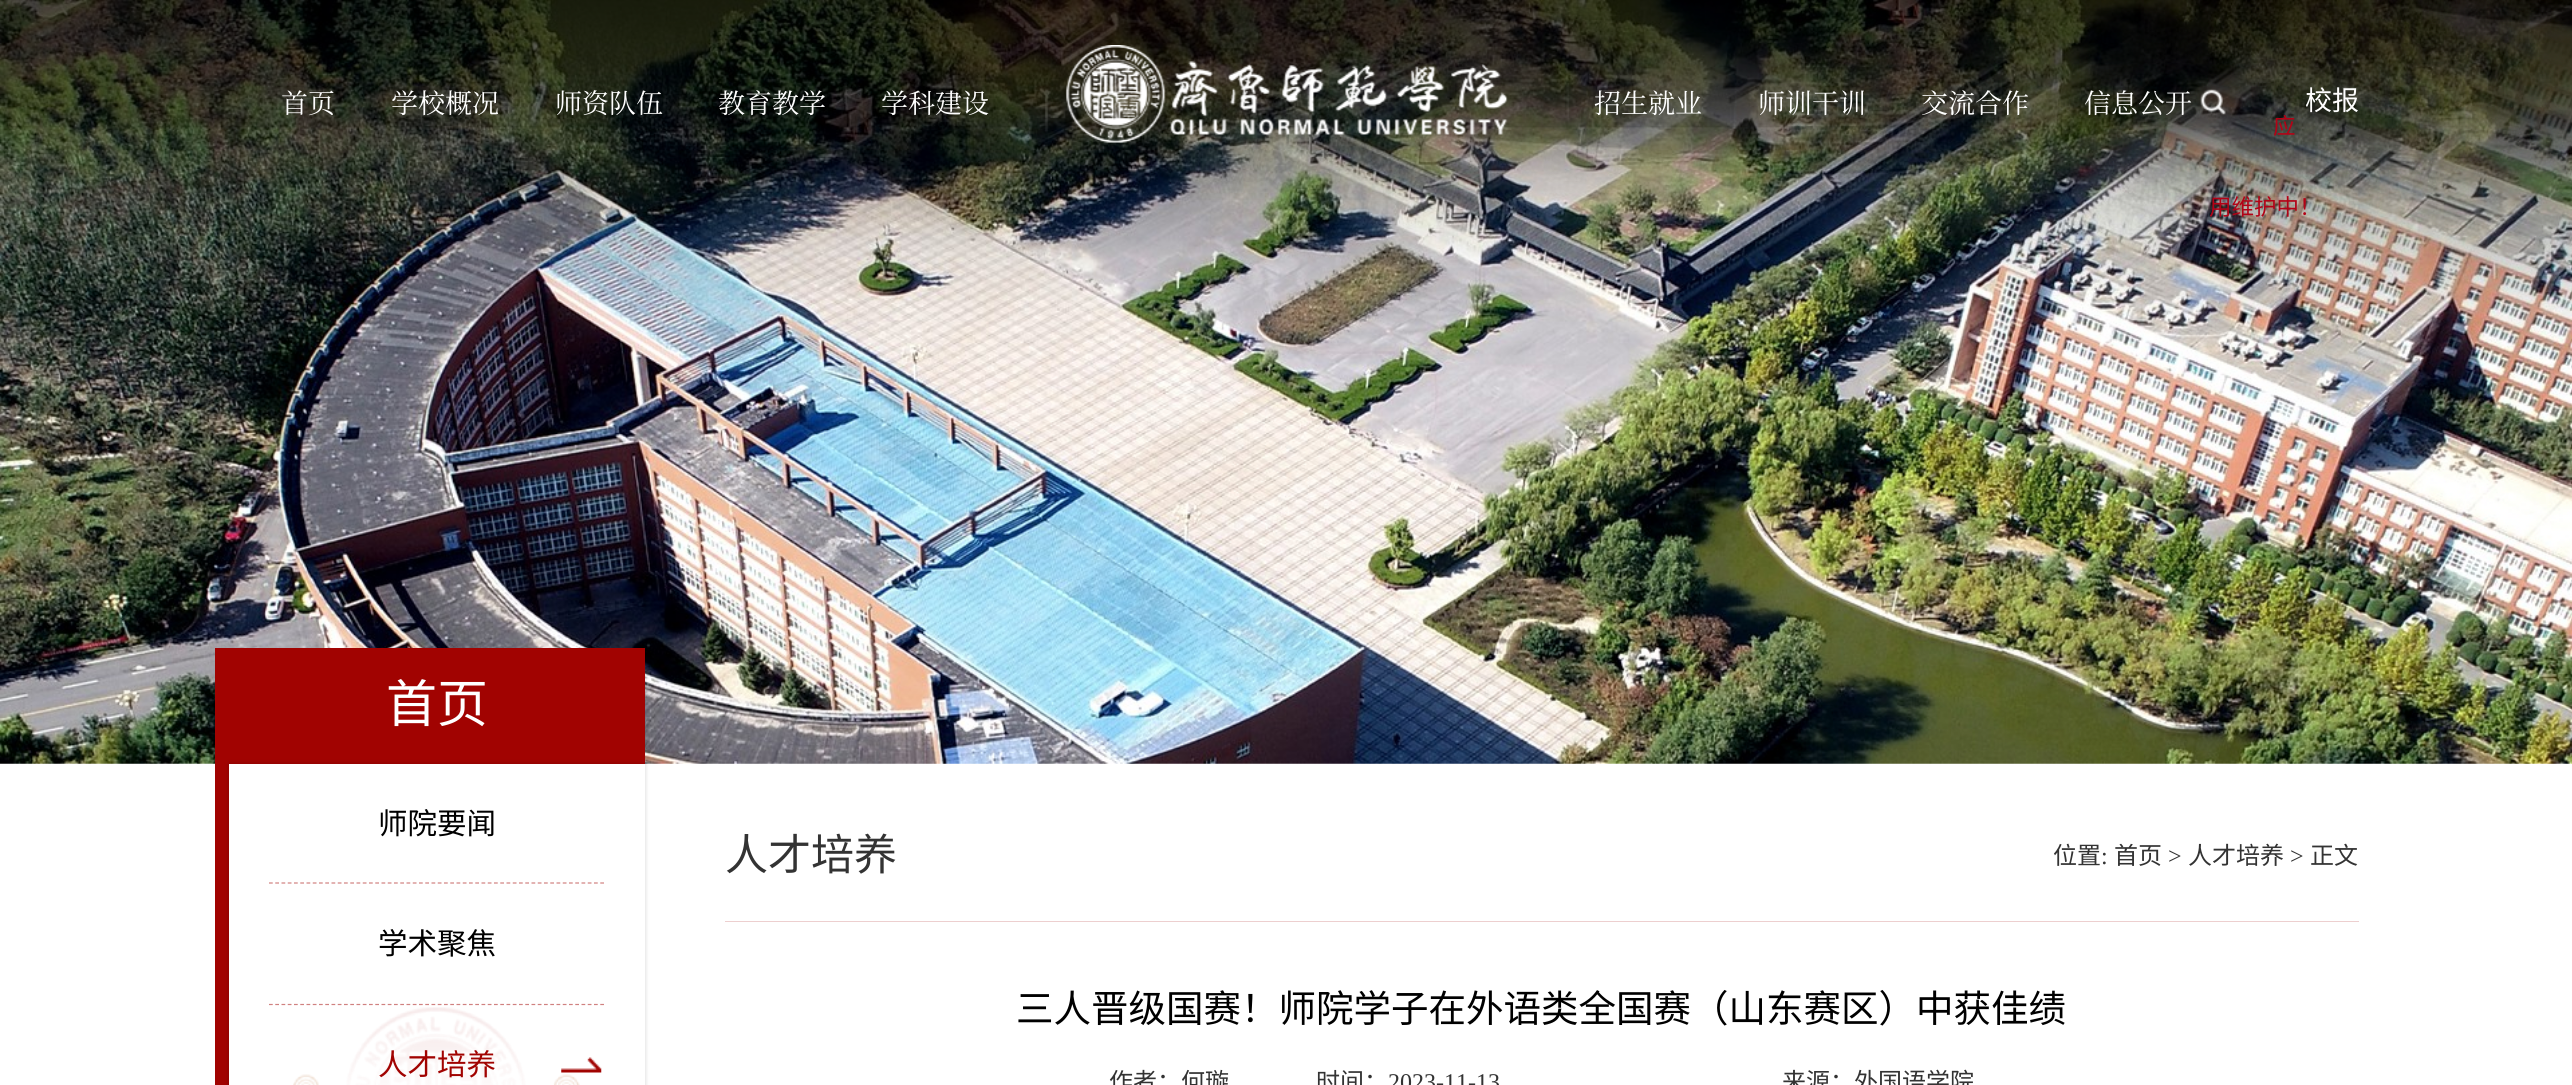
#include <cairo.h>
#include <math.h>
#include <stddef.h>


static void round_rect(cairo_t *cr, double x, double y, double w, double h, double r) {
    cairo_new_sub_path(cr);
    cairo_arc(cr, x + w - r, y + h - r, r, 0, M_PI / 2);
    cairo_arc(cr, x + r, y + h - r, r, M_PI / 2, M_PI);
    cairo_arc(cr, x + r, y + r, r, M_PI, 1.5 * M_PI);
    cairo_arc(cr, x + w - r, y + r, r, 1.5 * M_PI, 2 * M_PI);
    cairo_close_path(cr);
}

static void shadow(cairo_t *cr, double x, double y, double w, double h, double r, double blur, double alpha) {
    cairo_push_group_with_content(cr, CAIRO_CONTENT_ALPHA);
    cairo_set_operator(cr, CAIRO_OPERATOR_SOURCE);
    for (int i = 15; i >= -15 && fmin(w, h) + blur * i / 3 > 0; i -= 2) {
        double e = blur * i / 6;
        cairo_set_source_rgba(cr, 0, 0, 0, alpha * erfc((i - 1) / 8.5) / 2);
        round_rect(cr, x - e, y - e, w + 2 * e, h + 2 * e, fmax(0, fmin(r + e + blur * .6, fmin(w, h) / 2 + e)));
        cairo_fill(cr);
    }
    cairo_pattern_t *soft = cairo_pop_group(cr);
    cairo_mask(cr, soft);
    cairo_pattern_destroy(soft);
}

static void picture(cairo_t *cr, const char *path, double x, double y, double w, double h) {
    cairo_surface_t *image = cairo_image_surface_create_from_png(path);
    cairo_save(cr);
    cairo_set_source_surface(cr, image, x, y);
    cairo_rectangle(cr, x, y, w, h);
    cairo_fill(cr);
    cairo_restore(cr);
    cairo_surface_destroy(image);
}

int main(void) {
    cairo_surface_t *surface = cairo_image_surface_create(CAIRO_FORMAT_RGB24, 2572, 1085);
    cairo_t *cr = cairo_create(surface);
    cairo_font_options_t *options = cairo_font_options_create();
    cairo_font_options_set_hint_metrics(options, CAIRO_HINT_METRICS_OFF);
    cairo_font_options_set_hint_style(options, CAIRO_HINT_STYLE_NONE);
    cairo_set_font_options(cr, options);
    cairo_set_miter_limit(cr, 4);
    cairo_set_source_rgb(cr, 1, 1, 1);
    cairo_paint(cr);
    picture(cr, "img1.png", 0, 0, 2572, 764);
    picture(cr, "img2.png", 0, 0, 2572, 200);
    picture(cr, "img3.png", 1066, 45, 442, 98);
    picture(cr, "img4.png", 2200, 88, 26, 27);
    cairo_select_font_face(cr, "Noto Sans CJK SC", CAIRO_FONT_SLANT_NORMAL, CAIRO_FONT_WEIGHT_NORMAL);
    cairo_set_font_size(cr, 27);
    cairo_set_source_rgb(cr, 1, 1, 1);
    cairo_move_to(cr, 2305, 110);
    cairo_show_text(cr, "校报");
    cairo_set_font_size(cr, 22.5);
    cairo_set_source_rgb(cr, 0.702, 0.008, 0.086);
    cairo_move_to(cr, 2273, 134);
    cairo_show_text(cr, "应");
    cairo_move_to(cr, 2209, 215);
    cairo_show_text(cr, "用维护中！");
    cairo_select_font_face(cr, "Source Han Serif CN", CAIRO_FONT_SLANT_NORMAL, CAIRO_FONT_WEIGHT_NORMAL);
    cairo_set_font_size(cr, 27);
    cairo_set_source_rgb(cr, 1, 1, 1);
    cairo_move_to(cr, 281, 113);
    cairo_show_text(cr, "首页");
    cairo_move_to(cr, 391, 113);
    cairo_show_text(cr, "学校概况");
    cairo_move_to(cr, 555, 113);
    cairo_show_text(cr, "师资队伍");
    cairo_move_to(cr, 718, 113);
    cairo_show_text(cr, "教育教学");
    cairo_move_to(cr, 881, 113);
    cairo_show_text(cr, "学科建设");
    cairo_move_to(cr, 1594, 113);
    cairo_show_text(cr, "招生就业");
    cairo_move_to(cr, 1758, 113);
    cairo_show_text(cr, "师训干训");
    cairo_move_to(cr, 1921, 113);
    cairo_show_text(cr, "交流合作");
    cairo_move_to(cr, 2084, 113);
    cairo_show_text(cr, "信息公开");
    cairo_set_source_rgb(cr, 0.631, 0.012, 0.004);
    cairo_rectangle(cr, 215, 648, 430, 437);
    cairo_fill(cr);
    cairo_select_font_face(cr, "Noto Sans CJK SC", CAIRO_FONT_SLANT_NORMAL, CAIRO_FONT_WEIGHT_NORMAL);
    cairo_set_font_size(cr, 51);
    cairo_set_source_rgb(cr, 1, 1, 1);
    cairo_move_to(cr, 386, 722);
    cairo_show_text(cr, "首页");
    cairo_set_source_rgb(cr, 0, 0, 0);
    shadow(cr, 229, 764, 416, 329, 0, 2.5, 0.17);
    cairo_set_source_rgb(cr, 1, 1, 1);
    cairo_rectangle(cr, 229, 764, 416, 321);
    cairo_fill(cr);
    cairo_set_font_size(cr, 29.5);
    cairo_set_source_rgb(cr, 0, 0, 0);
    cairo_move_to(cr, 378, 834);
    cairo_show_text(cr, "师院要闻");
    cairo_new_path(cr);
    cairo_move_to(cr, 269, 883);
    cairo_line_to(cr, 604, 883);
    cairo_set_source_rgb(cr, 0.816, 0.506, 0.502);
    cairo_set_line_width(cr, 1.2);
    cairo_set_dash(cr, (double[]){3.75, 2.5}, 2, 0);
    cairo_stroke(cr);
    cairo_set_source_rgb(cr, 0, 0, 0);
    cairo_move_to(cr, 378, 954);
    cairo_show_text(cr, "学术聚焦");
    cairo_new_path(cr);
    cairo_move_to(cr, 269, 1004.5);
    cairo_line_to(cr, 604, 1004.5);
    cairo_set_source_rgb(cr, 0.816, 0.506, 0.502);
    cairo_stroke(cr);
    picture(cr, "img5.png", 293, 1007, 287, 78);
    cairo_set_source_rgb(cr, 0.631, 0.012, 0.004);
    cairo_move_to(cr, 378, 1075);
    cairo_show_text(cr, "人才培养");
    picture(cr, "img6.png", 561, 1057, 41, 16);
    cairo_set_source_rgb(cr, 0.929, 0.812, 0.812);
    cairo_rectangle(cr, 725, 921, 1634, 1);
    cairo_fill(cr);
    cairo_set_font_size(cr, 43);
    cairo_set_source_rgb(cr, 0.2, 0.2, 0.2);
    cairo_move_to(cr, 725, 870);
    cairo_show_text(cr, "人才培养");
    cairo_set_font_size(cr, 24);
    cairo_move_to(cr, 2053, 864);
    cairo_show_text(cr, "位置");
    cairo_select_font_face(cr, "Liberation Serif", CAIRO_FONT_SLANT_NORMAL, CAIRO_FONT_WEIGHT_NORMAL);
    cairo_move_to(cr, 2101, 864);
    cairo_show_text(cr, ":");
    cairo_select_font_face(cr, "Noto Sans CJK SC", CAIRO_FONT_SLANT_NORMAL, CAIRO_FONT_WEIGHT_NORMAL);
    cairo_move_to(cr, 2114, 864);
    cairo_show_text(cr, "首页");
    cairo_select_font_face(cr, "Liberation Serif", CAIRO_FONT_SLANT_NORMAL, CAIRO_FONT_WEIGHT_NORMAL);
    cairo_move_to(cr, 2168, 864);
    cairo_show_text(cr, ">");
    cairo_select_font_face(cr, "Noto Sans CJK SC", CAIRO_FONT_SLANT_NORMAL, CAIRO_FONT_WEIGHT_NORMAL);
    cairo_move_to(cr, 2188, 864);
    cairo_show_text(cr, "人才培养");
    cairo_select_font_face(cr, "Liberation Serif", CAIRO_FONT_SLANT_NORMAL, CAIRO_FONT_WEIGHT_NORMAL);
    cairo_move_to(cr, 2290, 864);
    cairo_show_text(cr, ">");
    cairo_select_font_face(cr, "Noto Sans CJK SC", CAIRO_FONT_SLANT_NORMAL, CAIRO_FONT_WEIGHT_NORMAL);
    cairo_move_to(cr, 2310, 864);
    cairo_show_text(cr, "正文");
    cairo_set_font_size(cr, 37.5);
    cairo_set_source_rgb(cr, 0, 0, 0);
    cairo_move_to(cr, 1016, 1022);
    cairo_show_text(cr, "三人晋级国赛！师院学子在外语类全国赛（山东赛区）中获佳绩");
    cairo_set_font_size(cr, 24);
    cairo_set_source_rgb(cr, 0.2, 0.2, 0.2);
    cairo_move_to(cr, 1109, 1090);
    cairo_show_text(cr, "作者：何璇");
    cairo_move_to(cr, 1316, 1090);
    cairo_show_text(cr, "时间：");
    cairo_select_font_face(cr, "Liberation Serif", CAIRO_FONT_SLANT_NORMAL, CAIRO_FONT_WEIGHT_NORMAL);
    cairo_move_to(cr, 1388, 1090);
    cairo_show_text(cr, "2023-11-13");
    cairo_select_font_face(cr, "Noto Sans CJK SC", CAIRO_FONT_SLANT_NORMAL, CAIRO_FONT_WEIGHT_NORMAL);
    cairo_move_to(cr, 1782, 1090);
    cairo_show_text(cr, "来源：外国语学院");
    cairo_surface_write_to_png(surface, "page.png");
    cairo_font_options_destroy(options);
    cairo_destroy(cr);
    cairo_surface_destroy(surface);
    return 0;
}
